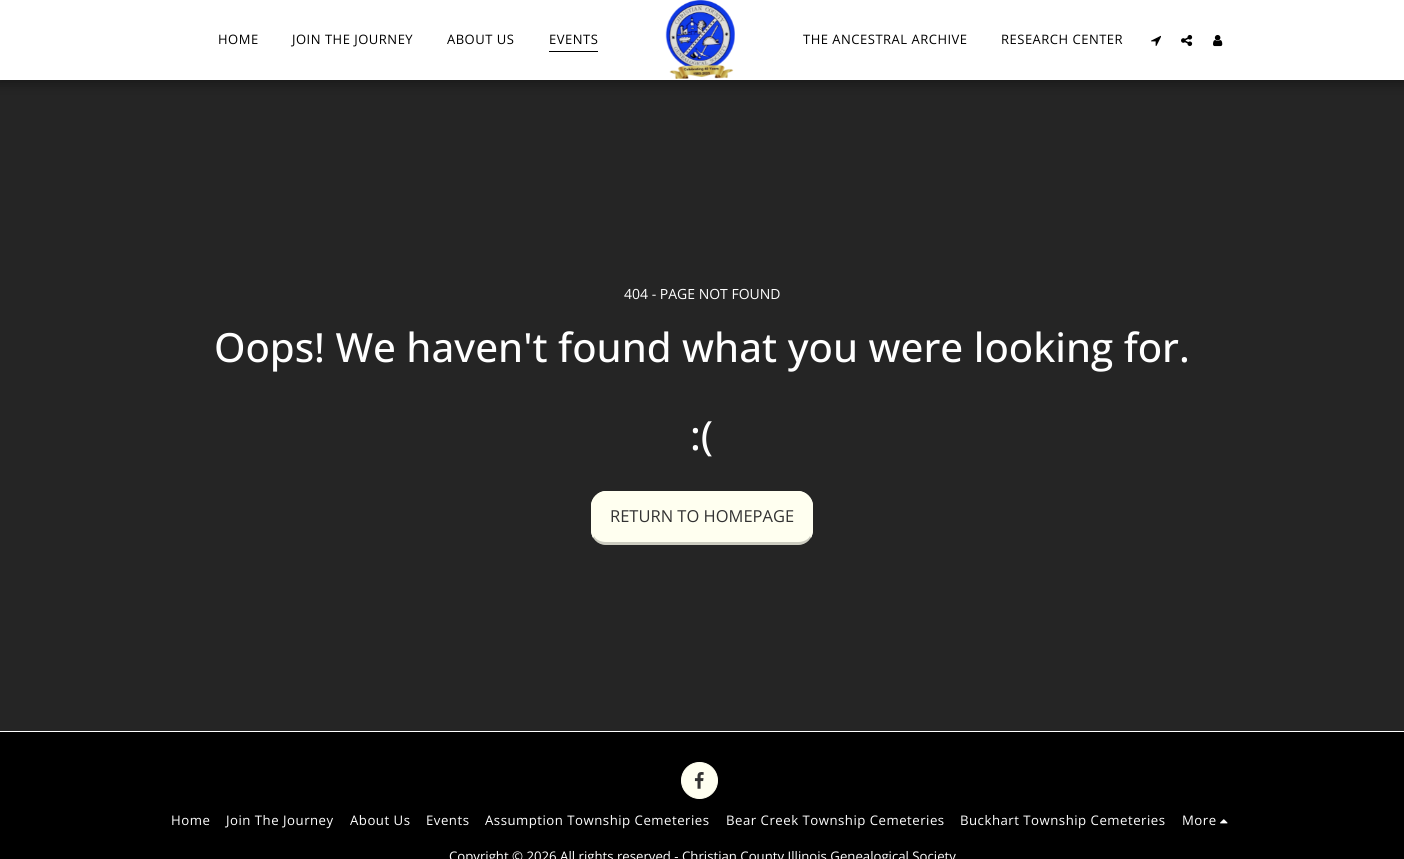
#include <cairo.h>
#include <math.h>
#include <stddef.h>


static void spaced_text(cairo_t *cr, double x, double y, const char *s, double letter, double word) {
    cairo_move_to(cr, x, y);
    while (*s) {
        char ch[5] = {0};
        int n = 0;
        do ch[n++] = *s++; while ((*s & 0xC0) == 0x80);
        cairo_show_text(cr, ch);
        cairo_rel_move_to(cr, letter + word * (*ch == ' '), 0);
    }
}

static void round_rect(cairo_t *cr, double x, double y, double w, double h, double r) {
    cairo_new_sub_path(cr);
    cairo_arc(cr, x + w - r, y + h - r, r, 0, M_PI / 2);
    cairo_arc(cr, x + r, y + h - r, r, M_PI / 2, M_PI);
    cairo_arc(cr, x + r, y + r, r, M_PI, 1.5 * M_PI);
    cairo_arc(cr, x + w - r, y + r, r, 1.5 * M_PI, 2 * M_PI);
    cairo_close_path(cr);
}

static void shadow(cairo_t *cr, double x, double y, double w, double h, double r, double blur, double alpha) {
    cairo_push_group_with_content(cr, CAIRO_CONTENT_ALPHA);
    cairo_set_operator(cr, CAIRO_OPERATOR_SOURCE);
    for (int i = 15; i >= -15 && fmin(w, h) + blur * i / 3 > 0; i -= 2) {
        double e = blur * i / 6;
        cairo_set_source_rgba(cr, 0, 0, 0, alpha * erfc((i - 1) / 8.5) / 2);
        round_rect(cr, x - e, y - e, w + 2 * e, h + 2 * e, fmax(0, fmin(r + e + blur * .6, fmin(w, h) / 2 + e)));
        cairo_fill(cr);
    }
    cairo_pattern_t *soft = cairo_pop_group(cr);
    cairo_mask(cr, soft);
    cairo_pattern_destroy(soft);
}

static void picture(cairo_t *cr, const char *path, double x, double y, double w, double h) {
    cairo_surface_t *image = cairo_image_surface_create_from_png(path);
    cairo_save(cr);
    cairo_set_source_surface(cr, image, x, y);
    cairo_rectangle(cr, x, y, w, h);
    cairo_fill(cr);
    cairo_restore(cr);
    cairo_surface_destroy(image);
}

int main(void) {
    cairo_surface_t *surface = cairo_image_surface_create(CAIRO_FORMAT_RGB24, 1404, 859);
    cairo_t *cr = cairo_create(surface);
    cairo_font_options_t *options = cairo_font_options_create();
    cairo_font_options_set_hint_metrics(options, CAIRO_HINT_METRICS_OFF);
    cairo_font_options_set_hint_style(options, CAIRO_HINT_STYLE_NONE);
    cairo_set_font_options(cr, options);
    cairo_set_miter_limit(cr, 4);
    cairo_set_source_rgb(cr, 0.145, 0.145, 0.145);
    cairo_paint(cr);
    cairo_set_source_rgb(cr, 0, 0, 0);
    shadow(cr, -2, 0, 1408, 84, 0, 6, 0.35);
    cairo_set_source_rgb(cr, 1, 1, 1);
    cairo_rectangle(cr, 0, 0, 1404, 80);
    cairo_fill(cr);
    cairo_select_font_face(cr, "Open Sans", CAIRO_FONT_SLANT_NORMAL, CAIRO_FONT_WEIGHT_NORMAL);
    cairo_set_font_size(cr, 13);
    cairo_set_source_rgb(cr, 0, 0, 0);
    spaced_text(cr, 218, 44, "HOME", 0.5, 0);
    spaced_text(cr, 292, 44, "JOIN THE JOURNEY", 0.5, 0);
    spaced_text(cr, 447, 44, "ABOUT US", 0.5, 0);
    spaced_text(cr, 549, 44, "EVENTS", 0.5, 0);
    cairo_rectangle(cr, 549, 51, 49, 1);
    cairo_fill(cr);
    picture(cr, "img1.png", 665, 0, 70, 79);
    spaced_text(cr, 803, 44, "THE ANCESTRAL ARCHIVE", 0.5, 0);
    spaced_text(cr, 1001, 44, "RESEARCH CENTER", 0.5, 0);
    picture(cr, "img2.png", 1151, 35, 10, 11);
    picture(cr, "img3.png", 1181, 34, 12, 13);
    picture(cr, "img4.png", 1213, 35, 10, 12);
    cairo_set_font_size(cr, 14);
    cairo_set_source_rgb(cr, 1, 1, 1);
    cairo_move_to(cr, 624, 299);
    cairo_show_text(cr, "404 - PAGE NOT FOUND");
    cairo_select_font_face(cr, "Open Sans Medium", CAIRO_FONT_SLANT_NORMAL, CAIRO_FONT_WEIGHT_NORMAL);
    cairo_set_font_size(cr, 40.25);
    cairo_move_to(cr, 214, 362);
    cairo_show_text(cr, "Oops! We haven't found what you were looking for.");
    cairo_move_to(cr, 690, 450);
    cairo_show_text(cr, ":(");
    cairo_set_source_rgb(cr, 1, 1, 0.941);
    round_rect(cr, 591, 491, 222, 54, 15);
    cairo_fill(cr);
    cairo_new_path(cr);
    cairo_move_to(cr, 606, 491);
    cairo_curve_to(cr, 602, 491, 598, 493, 596, 496);
    cairo_curve_to(cr, 598, 494, 602, 492, 606, 492);
    cairo_line_to(cr, 798, 492);
    cairo_curve_to(cr, 802, 492, 806, 494, 808, 496);
    cairo_curve_to(cr, 806, 493, 802, 491, 798, 491);
    cairo_close_path(cr);
    cairo_fill(cr);
    cairo_new_path(cr);
    cairo_move_to(cr, 813, 530);
    cairo_line_to(cr, 813, 506);
    cairo_curve_to(cr, 813, 502, 811, 498, 808, 496);
    cairo_curve_to(cr, 814, 502, 812, 511, 812, 518);
    cairo_curve_to(cr, 812, 524, 814, 531, 810, 536);
    cairo_line_to(cr, 811, 538);
    cairo_curve_to(cr, 812, 536, 813, 533, 813, 530);
    cairo_close_path(cr);
    cairo_fill(cr);
    cairo_set_source_rgba(cr, 0, 0, 0, 0.2);
    cairo_new_path(cr);
    cairo_move_to(cr, 606, 545);
    cairo_line_to(cr, 798, 545);
    cairo_curve_to(cr, 803, 545, 808, 542, 811, 538);
    cairo_line_to(cr, 810, 536);
    cairo_curve_to(cr, 808, 540, 803, 542, 798, 542);
    cairo_line_to(cr, 606, 542);
    cairo_curve_to(cr, 601, 542, 596, 540, 594, 536);
    cairo_line_to(cr, 593, 538);
    cairo_curve_to(cr, 596, 542, 601, 545, 606, 545);
    cairo_close_path(cr);
    cairo_fill(cr);
    cairo_set_source_rgb(cr, 1, 1, 0.941);
    cairo_new_path(cr);
    cairo_move_to(cr, 591, 506);
    cairo_line_to(cr, 591, 530);
    cairo_curve_to(cr, 591, 533, 592, 536, 593, 538);
    cairo_line_to(cr, 594, 536);
    cairo_curve_to(cr, 590, 531, 592, 524, 592, 518);
    cairo_curve_to(cr, 592, 511, 590, 502, 596, 496);
    cairo_curve_to(cr, 593, 498, 591, 502, 591, 506);
    cairo_close_path(cr);
    cairo_fill(cr);
    cairo_select_font_face(cr, "Open Sans", CAIRO_FONT_SLANT_NORMAL, CAIRO_FONT_WEIGHT_NORMAL);
    cairo_set_font_size(cr, 16.5);
    cairo_set_source_rgb(cr, 0.2, 0.2, 0.2);
    cairo_move_to(cr, 610, 522);
    cairo_show_text(cr, "RETURN TO HOMEPAGE");
    cairo_set_source_rgb(cr, 1, 1, 1);
    cairo_rectangle(cr, 0, 731, 1404, 1);
    cairo_fill(cr);
    cairo_set_source_rgb(cr, 0, 0, 0);
    cairo_rectangle(cr, 0, 732, 1404, 127);
    cairo_fill(cr);
    cairo_set_source_rgb(cr, 1, 1, 0.941);
    cairo_arc(cr, 699.5, 780.5, 18, 0, 2 * M_PI);
    cairo_fill_preserve(cr);
    cairo_set_line_width(cr, 1);
    cairo_stroke(cr);
    picture(cr, "img5.png", 694, 772, 10, 17);
    cairo_set_font_size(cr, 13.2);
    cairo_set_source_rgb(cr, 1, 1, 1);
    spaced_text(cr, 171, 825, "Home", 0.5, 0);
    spaced_text(cr, 226, 825, "Join The Journey", 0.5, 0);
    spaced_text(cr, 350, 825, "About Us", 0.5, 0);
    spaced_text(cr, 426, 825, "Events", 0.5, 0);
    spaced_text(cr, 485, 825, "Assumption Township Cemeteries", 0.5, 0);
    spaced_text(cr, 726, 825, "Bear Creek Township Cemeteries", 0.5, 0);
    spaced_text(cr, 960, 825, "Buckhart Township Cemeteries", 0.5, 0);
    spaced_text(cr, 1182, 825, "More", 0.5, 0);
    picture(cr, "img6.png", 1220, 819, 8, 5);
    cairo_move_to(cr, 449, 861);
    cairo_show_text(cr, "Copyright © 2026 All rights reserved - Christian County Illinois Genealogical Society");
    cairo_surface_write_to_png(surface, "page.png");
    cairo_font_options_destroy(options);
    cairo_destroy(cr);
    cairo_surface_destroy(surface);
    return 0;
}
